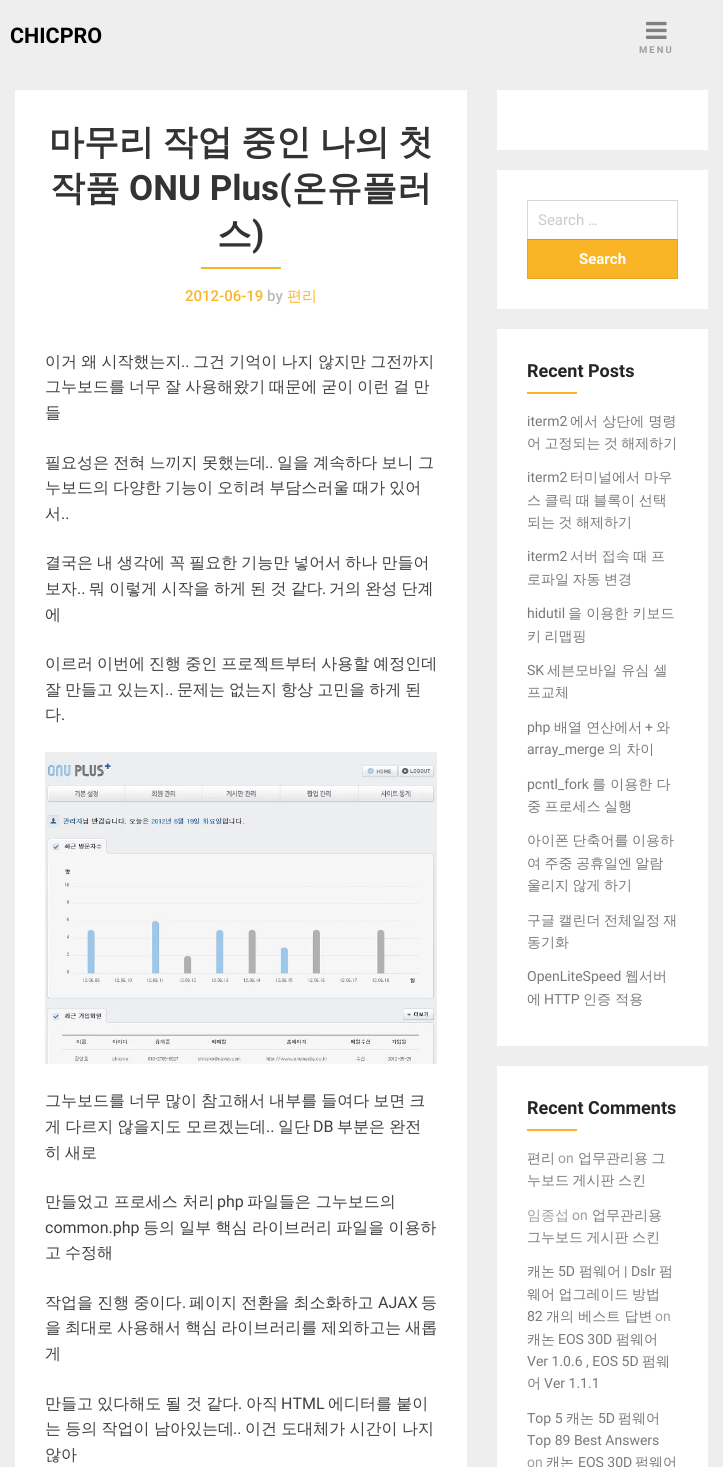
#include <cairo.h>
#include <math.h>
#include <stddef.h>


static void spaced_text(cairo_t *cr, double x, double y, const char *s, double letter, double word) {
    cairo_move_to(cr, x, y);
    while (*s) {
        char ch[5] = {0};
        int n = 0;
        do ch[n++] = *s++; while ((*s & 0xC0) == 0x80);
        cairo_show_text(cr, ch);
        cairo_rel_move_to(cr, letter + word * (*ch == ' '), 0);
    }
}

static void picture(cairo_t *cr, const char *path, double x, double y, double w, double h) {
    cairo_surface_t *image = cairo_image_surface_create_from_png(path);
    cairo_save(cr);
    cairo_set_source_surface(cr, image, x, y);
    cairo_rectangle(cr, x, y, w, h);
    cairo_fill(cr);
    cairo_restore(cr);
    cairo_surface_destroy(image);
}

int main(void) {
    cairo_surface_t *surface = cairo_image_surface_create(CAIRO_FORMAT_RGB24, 723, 1467);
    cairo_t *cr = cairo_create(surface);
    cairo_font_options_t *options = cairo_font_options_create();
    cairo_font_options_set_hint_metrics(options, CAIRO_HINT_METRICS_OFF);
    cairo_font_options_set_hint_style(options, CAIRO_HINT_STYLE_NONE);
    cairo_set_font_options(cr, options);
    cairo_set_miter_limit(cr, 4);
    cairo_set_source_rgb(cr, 0.933, 0.933, 0.933);
    cairo_paint(cr);
    cairo_select_font_face(cr, "Roboto", CAIRO_FONT_SLANT_NORMAL, CAIRO_FONT_WEIGHT_BOLD);
    cairo_set_font_size(cr, 21.5);
    cairo_set_source_rgb(cr, 0, 0, 0);
    cairo_move_to(cr, 10, 43);
    cairo_show_text(cr, "CHICPRO");
    picture(cr, "img1.png", 646, 21, 21, 18);
    cairo_set_font_size(cr, 9.5);
    cairo_set_source_rgb(cr, 0.62, 0.62, 0.62);
    spaced_text(cr, 639, 53, "MENU", 2, 0);
    cairo_set_source_rgb(cr, 1, 1, 1);
    cairo_rectangle(cr, 15, 90, 452, 1377);
    cairo_fill(cr);
    cairo_select_font_face(cr, "WenQuanYi Zen Hei", CAIRO_FONT_SLANT_NORMAL, CAIRO_FONT_WEIGHT_BOLD);
    cairo_set_font_size(cr, 35);
    cairo_set_source_rgb(cr, 0.2, 0.2, 0.2);
    spaced_text(cr, 49, 154, "마무리 작업 중인 나의 첫", 0, -2);
    cairo_move_to(cr, 50, 200);
    cairo_show_text(cr, "작품");
    cairo_select_font_face(cr, "Roboto", CAIRO_FONT_SLANT_NORMAL, CAIRO_FONT_WEIGHT_BOLD);
    cairo_move_to(cr, 129, 200);
    cairo_show_text(cr, "ONU Plus(");
    cairo_select_font_face(cr, "WenQuanYi Zen Hei", CAIRO_FONT_SLANT_NORMAL, CAIRO_FONT_WEIGHT_BOLD);
    cairo_move_to(cr, 292, 200);
    cairo_show_text(cr, "온유플러");
    cairo_move_to(cr, 217, 246);
    cairo_show_text(cr, "스");
    cairo_select_font_face(cr, "Roboto", CAIRO_FONT_SLANT_NORMAL, CAIRO_FONT_WEIGHT_BOLD);
    cairo_move_to(cr, 252, 246);
    cairo_show_text(cr, ")");
    cairo_set_source_rgb(cr, 0.98, 0.71, 0.149);
    cairo_rectangle(cr, 201, 267, 80, 2);
    cairo_fill(cr);
    cairo_select_font_face(cr, "Roboto Medium", CAIRO_FONT_SLANT_NORMAL, CAIRO_FONT_WEIGHT_NORMAL);
    cairo_set_font_size(cr, 15);
    cairo_move_to(cr, 185, 301);
    cairo_show_text(cr, "2012-06-19");
    cairo_set_source_rgb(cr, 0.733, 0.733, 0.733);
    cairo_move_to(cr, 267, 301);
    cairo_show_text(cr, "by");
    cairo_select_font_face(cr, "WenQuanYi Zen Hei Medium", CAIRO_FONT_SLANT_NORMAL, CAIRO_FONT_WEIGHT_NORMAL);
    cairo_set_source_rgb(cr, 0.98, 0.71, 0.149);
    cairo_move_to(cr, 287, 301);
    cairo_show_text(cr, "편리");
    cairo_set_font_size(cr, 16);
    cairo_set_source_rgb(cr, 0.251, 0.251, 0.251);
    spaced_text(cr, 45, 367, "이거 왜 시작했는지", 0, -0.5);
    cairo_select_font_face(cr, "Roboto", CAIRO_FONT_SLANT_NORMAL, CAIRO_FONT_WEIGHT_NORMAL);
    cairo_move_to(cr, 181, 367);
    cairo_show_text(cr, "..");
    cairo_select_font_face(cr, "WenQuanYi Zen Hei Medium", CAIRO_FONT_SLANT_NORMAL, CAIRO_FONT_WEIGHT_NORMAL);
    spaced_text(cr, 193, 367, "그건 기억이 나지 않지만 그전까지", 0, -0.5);
    spaced_text(cr, 45, 392, "그누보드를 너무 잘 사용해왔기 때문에 굳이 이런 걸 만", 0, -0.75);
    cairo_move_to(cr, 45, 418);
    cairo_show_text(cr, "들");
    spaced_text(cr, 45, 468, "필요성은 전혀 느끼지 못했는데", 0, -0.5);
    cairo_select_font_face(cr, "Roboto", CAIRO_FONT_SLANT_NORMAL, CAIRO_FONT_WEIGHT_NORMAL);
    cairo_move_to(cr, 265, 468);
    cairo_show_text(cr, "..");
    cairo_select_font_face(cr, "WenQuanYi Zen Hei Medium", CAIRO_FONT_SLANT_NORMAL, CAIRO_FONT_WEIGHT_NORMAL);
    spaced_text(cr, 277, 468, "일을 계속하다 보니 그", 0, -0.5);
    spaced_text(cr, 45, 493, "누보드의 다양한 기능이 오히려 부담스러울 때가 있어", 0, -0.75);
    cairo_move_to(cr, 45, 519);
    cairo_show_text(cr, "서");
    cairo_select_font_face(cr, "Roboto", CAIRO_FONT_SLANT_NORMAL, CAIRO_FONT_WEIGHT_NORMAL);
    cairo_move_to(cr, 61, 519);
    cairo_show_text(cr, "..");
    cairo_select_font_face(cr, "WenQuanYi Zen Hei Medium", CAIRO_FONT_SLANT_NORMAL, CAIRO_FONT_WEIGHT_NORMAL);
    spaced_text(cr, 45, 568, "결국은 내 생각에 꼭 필요한 기능만 넣어서 하나 만들어", 0, -0.75);
    cairo_move_to(cr, 45, 594);
    cairo_show_text(cr, "보자");
    cairo_select_font_face(cr, "Roboto", CAIRO_FONT_SLANT_NORMAL, CAIRO_FONT_WEIGHT_NORMAL);
    cairo_move_to(cr, 77, 594);
    cairo_show_text(cr, "..");
    cairo_select_font_face(cr, "WenQuanYi Zen Hei Medium", CAIRO_FONT_SLANT_NORMAL, CAIRO_FONT_WEIGHT_NORMAL);
    spaced_text(cr, 89, 594, "뭐 이렇게 시작을 하게 된 것 같다", 0, -0.5);
    cairo_select_font_face(cr, "Roboto", CAIRO_FONT_SLANT_NORMAL, CAIRO_FONT_WEIGHT_NORMAL);
    cairo_move_to(cr, 322, 594);
    cairo_show_text(cr, ".");
    cairo_select_font_face(cr, "WenQuanYi Zen Hei Medium", CAIRO_FONT_SLANT_NORMAL, CAIRO_FONT_WEIGHT_NORMAL);
    spaced_text(cr, 329, 594, "거의 완성 단계", 0, -0.5);
    cairo_move_to(cr, 45, 620);
    cairo_show_text(cr, "에");
    spaced_text(cr, 45, 669, "이르러 이번에 진행 중인 프로젝트부터 사용할 예정인데", 0, -0.75);
    spaced_text(cr, 45, 695, "잘 만들고 있는지", 0, -0.75);
    cairo_select_font_face(cr, "Roboto", CAIRO_FONT_SLANT_NORMAL, CAIRO_FONT_WEIGHT_NORMAL);
    cairo_move_to(cr, 165, 695);
    cairo_show_text(cr, "..");
    cairo_select_font_face(cr, "WenQuanYi Zen Hei Medium", CAIRO_FONT_SLANT_NORMAL, CAIRO_FONT_WEIGHT_NORMAL);
    spaced_text(cr, 177, 695, "문제는 없는지 항상 고민을 하게 된", 0, -0.75);
    cairo_move_to(cr, 45, 720);
    cairo_show_text(cr, "다");
    cairo_select_font_face(cr, "Roboto", CAIRO_FONT_SLANT_NORMAL, CAIRO_FONT_WEIGHT_NORMAL);
    cairo_move_to(cr, 61, 720);
    cairo_show_text(cr, ".");
    picture(cr, "img2.png", 45, 752, 392, 312);
    cairo_select_font_face(cr, "WenQuanYi Zen Hei Medium", CAIRO_FONT_SLANT_NORMAL, CAIRO_FONT_WEIGHT_NORMAL);
    spaced_text(cr, 45, 1106, "그누보드를 너무 많이 참고해서 내부를 들여다 보면 크", 0, -0.75);
    spaced_text(cr, 45, 1132, "게 다르지 않을지도 모르겠는데", 0, -0.5);
    cairo_select_font_face(cr, "Roboto", CAIRO_FONT_SLANT_NORMAL, CAIRO_FONT_WEIGHT_NORMAL);
    cairo_move_to(cr, 266, 1132);
    cairo_show_text(cr, "..");
    cairo_select_font_face(cr, "WenQuanYi Zen Hei Medium", CAIRO_FONT_SLANT_NORMAL, CAIRO_FONT_WEIGHT_NORMAL);
    cairo_move_to(cr, 278, 1132);
    cairo_show_text(cr, "일단");
    cairo_select_font_face(cr, "Roboto", CAIRO_FONT_SLANT_NORMAL, CAIRO_FONT_WEIGHT_NORMAL);
    cairo_move_to(cr, 313, 1132);
    cairo_show_text(cr, "DB");
    cairo_select_font_face(cr, "WenQuanYi Zen Hei Medium", CAIRO_FONT_SLANT_NORMAL, CAIRO_FONT_WEIGHT_NORMAL);
    spaced_text(cr, 337, 1132, "부분은 완전", 0, -0.5);
    spaced_text(cr, 45, 1158, "히 새로", 0, -0.75);
    cairo_move_to(cr, 45, 1207);
    cairo_show_text(cr, "만들었고 프로세스 처리");
    cairo_select_font_face(cr, "Roboto", CAIRO_FONT_SLANT_NORMAL, CAIRO_FONT_WEIGHT_NORMAL);
    cairo_move_to(cr, 217, 1207);
    cairo_show_text(cr, "php");
    cairo_select_font_face(cr, "WenQuanYi Zen Hei Medium", CAIRO_FONT_SLANT_NORMAL, CAIRO_FONT_WEIGHT_NORMAL);
    cairo_move_to(cr, 247, 1207);
    cairo_show_text(cr, "파일들은 그누보드의");
    cairo_select_font_face(cr, "Roboto", CAIRO_FONT_SLANT_NORMAL, CAIRO_FONT_WEIGHT_NORMAL);
    cairo_move_to(cr, 45, 1233);
    cairo_show_text(cr, "common.php");
    cairo_select_font_face(cr, "WenQuanYi Zen Hei Medium", CAIRO_FONT_SLANT_NORMAL, CAIRO_FONT_WEIGHT_NORMAL);
    spaced_text(cr, 143, 1233, "등의 일부 핵심 라이브러리 파일을 이용하", 0, -0.5);
    spaced_text(cr, 45, 1258, "고 수정해", 0, -0.75);
    spaced_text(cr, 45, 1308, "작업을 진행 중이다", 0, -0.5);
    cairo_select_font_face(cr, "Roboto", CAIRO_FONT_SLANT_NORMAL, CAIRO_FONT_WEIGHT_NORMAL);
    cairo_move_to(cr, 182, 1308);
    cairo_show_text(cr, ".");
    cairo_select_font_face(cr, "WenQuanYi Zen Hei Medium", CAIRO_FONT_SLANT_NORMAL, CAIRO_FONT_WEIGHT_NORMAL);
    spaced_text(cr, 189, 1308, "페이지 전환을 최소화하고", 0, -0.5);
    cairo_select_font_face(cr, "Roboto", CAIRO_FONT_SLANT_NORMAL, CAIRO_FONT_WEIGHT_NORMAL);
    cairo_move_to(cr, 378, 1308);
    cairo_show_text(cr, "AJAX");
    cairo_select_font_face(cr, "WenQuanYi Zen Hei Medium", CAIRO_FONT_SLANT_NORMAL, CAIRO_FONT_WEIGHT_NORMAL);
    cairo_move_to(cr, 421, 1308);
    cairo_show_text(cr, "등");
    spaced_text(cr, 45, 1333, "을 최대로 사용해서 핵심 라이브러리를 제외하고는 새롭", 0, -0.75);
    cairo_move_to(cr, 45, 1359);
    cairo_show_text(cr, "게");
    spaced_text(cr, 45, 1409, "만들고 있다해도 될 것 같다", 0, -0.5);
    cairo_select_font_face(cr, "Roboto", CAIRO_FONT_SLANT_NORMAL, CAIRO_FONT_WEIGHT_NORMAL);
    cairo_move_to(cr, 238, 1409);
    cairo_show_text(cr, ".");
    cairo_select_font_face(cr, "WenQuanYi Zen Hei Medium", CAIRO_FONT_SLANT_NORMAL, CAIRO_FONT_WEIGHT_NORMAL);
    cairo_move_to(cr, 246, 1409);
    cairo_show_text(cr, "아직");
    cairo_select_font_face(cr, "Roboto", CAIRO_FONT_SLANT_NORMAL, CAIRO_FONT_WEIGHT_NORMAL);
    cairo_move_to(cr, 281, 1409);
    cairo_show_text(cr, "HTML");
    cairo_select_font_face(cr, "WenQuanYi Zen Hei Medium", CAIRO_FONT_SLANT_NORMAL, CAIRO_FONT_WEIGHT_NORMAL);
    spaced_text(cr, 328, 1409, "에디터를 붙이", 0, -0.5);
    spaced_text(cr, 45, 1434, "는 등의 작업이 남아있는데", 0, -0.5);
    cairo_select_font_face(cr, "Roboto", CAIRO_FONT_SLANT_NORMAL, CAIRO_FONT_WEIGHT_NORMAL);
    cairo_move_to(cr, 233, 1434);
    cairo_show_text(cr, "..");
    cairo_select_font_face(cr, "WenQuanYi Zen Hei Medium", CAIRO_FONT_SLANT_NORMAL, CAIRO_FONT_WEIGHT_NORMAL);
    spaced_text(cr, 245, 1434, "이건 도대체가 시간이 나지", 0, -0.5);
    cairo_move_to(cr, 45, 1460);
    cairo_show_text(cr, "않아");
    cairo_set_source_rgb(cr, 1, 1, 1);
    cairo_rectangle(cr, 497, 90, 211, 60);
    cairo_fill(cr);
    cairo_rectangle(cr, 497, 170, 211, 139);
    cairo_fill(cr);
    cairo_set_source_rgb(cr, 0.847, 0.847, 0.847);
    cairo_new_path(cr);
    cairo_move_to(cr, 527, 200);
    cairo_line_to(cr, 678, 200);
    cairo_line_to(cr, 677, 201);
    cairo_line_to(cr, 528, 201);
    cairo_close_path(cr);
    cairo_fill(cr);
    cairo_set_source_rgba(cr, 0.2, 0.2, 0.2, 0.19);
    cairo_new_path(cr);
    cairo_move_to(cr, 678, 200);
    cairo_line_to(cr, 678, 239);
    cairo_line_to(cr, 677, 239);
    cairo_line_to(cr, 677, 201);
    cairo_close_path(cr);
    cairo_fill(cr);
    cairo_new_path(cr);
    cairo_move_to(cr, 527, 239);
    cairo_line_to(cr, 527, 200);
    cairo_line_to(cr, 528, 201);
    cairo_line_to(cr, 528, 239);
    cairo_close_path(cr);
    cairo_fill(cr);
    cairo_select_font_face(cr, "Roboto", CAIRO_FONT_SLANT_NORMAL, CAIRO_FONT_WEIGHT_NORMAL);
    cairo_set_font_size(cr, 15);
    cairo_set_source_rgb(cr, 0.792, 0.792, 0.792);
    cairo_move_to(cr, 538, 225);
    cairo_show_text(cr, "Search …");
    cairo_set_source_rgb(cr, 0.98, 0.71, 0.149);
    cairo_rectangle(cr, 527, 239, 151, 40);
    cairo_fill(cr);
    cairo_set_source_rgb(cr, 0.804, 0.608, 0.176);
    cairo_new_path(cr);
    cairo_move_to(cr, 527, 239);
    cairo_line_to(cr, 678, 239);
    cairo_line_to(cr, 677, 240);
    cairo_line_to(cr, 528, 240);
    cairo_close_path(cr);
    cairo_fill(cr);
    cairo_set_source_rgba(cr, 0.102, 0.208, 0.278, 0.11);
    cairo_new_path(cr);
    cairo_move_to(cr, 678, 239);
    cairo_line_to(cr, 678, 279);
    cairo_line_to(cr, 677, 278);
    cairo_line_to(cr, 677, 240);
    cairo_close_path(cr);
    cairo_fill(cr);
    cairo_new_path(cr);
    cairo_move_to(cr, 678, 279);
    cairo_line_to(cr, 527, 279);
    cairo_line_to(cr, 528, 278);
    cairo_line_to(cr, 677, 278);
    cairo_close_path(cr);
    cairo_fill(cr);
    cairo_new_path(cr);
    cairo_move_to(cr, 527, 279);
    cairo_line_to(cr, 527, 239);
    cairo_line_to(cr, 528, 240);
    cairo_line_to(cr, 528, 278);
    cairo_close_path(cr);
    cairo_fill(cr);
    cairo_select_font_face(cr, "Roboto", CAIRO_FONT_SLANT_NORMAL, CAIRO_FONT_WEIGHT_BOLD);
    cairo_set_source_rgb(cr, 1, 1, 1);
    cairo_move_to(cr, 579, 264);
    cairo_show_text(cr, "Search");
    cairo_rectangle(cr, 497, 329, 211, 717);
    cairo_fill(cr);
    cairo_set_font_size(cr, 18);
    cairo_set_source_rgb(cr, 0.145, 0.145, 0.145);
    cairo_move_to(cr, 527, 377);
    cairo_show_text(cr, "Recent Posts");
    cairo_set_source_rgb(cr, 0.98, 0.71, 0.149);
    cairo_rectangle(cr, 527, 392, 50, 2);
    cairo_fill(cr);
    cairo_select_font_face(cr, "Roboto", CAIRO_FONT_SLANT_NORMAL, CAIRO_FONT_WEIGHT_NORMAL);
    cairo_set_font_size(cr, 14);
    cairo_set_source_rgb(cr, 0.475, 0.475, 0.475);
    cairo_move_to(cr, 527, 426);
    cairo_show_text(cr, "iterm2");
    cairo_select_font_face(cr, "WenQuanYi Zen Hei Medium", CAIRO_FONT_SLANT_NORMAL, CAIRO_FONT_WEIGHT_NORMAL);
    cairo_move_to(cr, 570, 426);
    cairo_show_text(cr, "에서 상단에 명령");
    spaced_text(cr, 527, 448, "어 고정되는 것 해제하기", 0, -0.75);
    cairo_select_font_face(cr, "Roboto", CAIRO_FONT_SLANT_NORMAL, CAIRO_FONT_WEIGHT_NORMAL);
    cairo_move_to(cr, 527, 482);
    cairo_show_text(cr, "iterm2");
    cairo_select_font_face(cr, "WenQuanYi Zen Hei Medium", CAIRO_FONT_SLANT_NORMAL, CAIRO_FONT_WEIGHT_NORMAL);
    cairo_move_to(cr, 570, 482);
    cairo_show_text(cr, "터미널에서 마우");
    spaced_text(cr, 527, 505, "스 클릭 때 블록이 선택", 0, -0.75);
    spaced_text(cr, 527, 527, "되는 것 해제하기", 0, -0.75);
    cairo_select_font_face(cr, "Roboto", CAIRO_FONT_SLANT_NORMAL, CAIRO_FONT_WEIGHT_NORMAL);
    cairo_move_to(cr, 527, 561);
    cairo_show_text(cr, "iterm2");
    cairo_select_font_face(cr, "WenQuanYi Zen Hei Medium", CAIRO_FONT_SLANT_NORMAL, CAIRO_FONT_WEIGHT_NORMAL);
    spaced_text(cr, 570, 561, "서버 접속 때 프", 0, -0.5);
    spaced_text(cr, 527, 584, "로파일 자동 변경", 0, -0.75);
    cairo_select_font_face(cr, "Roboto", CAIRO_FONT_SLANT_NORMAL, CAIRO_FONT_WEIGHT_NORMAL);
    cairo_move_to(cr, 527, 618);
    cairo_show_text(cr, "hidutil");
    cairo_select_font_face(cr, "WenQuanYi Zen Hei Medium", CAIRO_FONT_SLANT_NORMAL, CAIRO_FONT_WEIGHT_NORMAL);
    cairo_move_to(cr, 568, 618);
    cairo_show_text(cr, "을 이용한 키보드");
    spaced_text(cr, 527, 641, "키 리맵핑", 0, -0.75);
    cairo_select_font_face(cr, "Roboto", CAIRO_FONT_SLANT_NORMAL, CAIRO_FONT_WEIGHT_NORMAL);
    cairo_move_to(cr, 527, 675);
    cairo_show_text(cr, "SK");
    cairo_select_font_face(cr, "WenQuanYi Zen Hei Medium", CAIRO_FONT_SLANT_NORMAL, CAIRO_FONT_WEIGHT_NORMAL);
    cairo_move_to(cr, 547, 675);
    cairo_show_text(cr, "세븐모바일 유심 셀");
    cairo_move_to(cr, 527, 697);
    cairo_show_text(cr, "프교체");
    cairo_select_font_face(cr, "Roboto", CAIRO_FONT_SLANT_NORMAL, CAIRO_FONT_WEIGHT_NORMAL);
    cairo_move_to(cr, 527, 732);
    cairo_show_text(cr, "php");
    cairo_select_font_face(cr, "WenQuanYi Zen Hei Medium", CAIRO_FONT_SLANT_NORMAL, CAIRO_FONT_WEIGHT_NORMAL);
    cairo_move_to(cr, 554, 732);
    cairo_show_text(cr, "배열 연산에서");
    cairo_select_font_face(cr, "Roboto", CAIRO_FONT_SLANT_NORMAL, CAIRO_FONT_WEIGHT_NORMAL);
    cairo_move_to(cr, 645, 732);
    cairo_show_text(cr, "+");
    cairo_select_font_face(cr, "WenQuanYi Zen Hei Medium", CAIRO_FONT_SLANT_NORMAL, CAIRO_FONT_WEIGHT_NORMAL);
    cairo_move_to(cr, 656, 732);
    cairo_show_text(cr, "와");
    cairo_select_font_face(cr, "Roboto", CAIRO_FONT_SLANT_NORMAL, CAIRO_FONT_WEIGHT_NORMAL);
    cairo_move_to(cr, 527, 754);
    cairo_show_text(cr, "array_merge");
    cairo_select_font_face(cr, "WenQuanYi Zen Hei Medium", CAIRO_FONT_SLANT_NORMAL, CAIRO_FONT_WEIGHT_NORMAL);
    cairo_move_to(cr, 608, 754);
    cairo_show_text(cr, "의 차이");
    cairo_select_font_face(cr, "Roboto", CAIRO_FONT_SLANT_NORMAL, CAIRO_FONT_WEIGHT_NORMAL);
    cairo_move_to(cr, 527, 789);
    cairo_show_text(cr, "pcntl_fork");
    cairo_select_font_face(cr, "WenQuanYi Zen Hei Medium", CAIRO_FONT_SLANT_NORMAL, CAIRO_FONT_WEIGHT_NORMAL);
    cairo_move_to(cr, 592, 789);
    cairo_show_text(cr, "를 이용한 다");
    spaced_text(cr, 527, 811, "중 프로세스 실행", 0, -0.75);
    spaced_text(cr, 527, 845, "아이폰 단축어를 이용하", 0, -0.75);
    spaced_text(cr, 527, 868, "여 주중 공휴일엔 알람", 0, -0.75);
    spaced_text(cr, 527, 890, "울리지 않게 하기", 0, -0.75);
    spaced_text(cr, 527, 925, "구글 캘린더 전체일정 재", 0, -0.75);
    cairo_move_to(cr, 527, 947);
    cairo_show_text(cr, "동기화");
    cairo_select_font_face(cr, "Roboto", CAIRO_FONT_SLANT_NORMAL, CAIRO_FONT_WEIGHT_NORMAL);
    cairo_move_to(cr, 527, 981);
    cairo_show_text(cr, "OpenLiteSpeed");
    cairo_select_font_face(cr, "WenQuanYi Zen Hei Medium", CAIRO_FONT_SLANT_NORMAL, CAIRO_FONT_WEIGHT_NORMAL);
    cairo_move_to(cr, 625, 981);
    cairo_show_text(cr, "웹서버");
    cairo_move_to(cr, 527, 1004);
    cairo_show_text(cr, "에");
    cairo_select_font_face(cr, "Roboto", CAIRO_FONT_SLANT_NORMAL, CAIRO_FONT_WEIGHT_NORMAL);
    cairo_move_to(cr, 544, 1004);
    cairo_show_text(cr, "HTTP");
    cairo_select_font_face(cr, "WenQuanYi Zen Hei Medium", CAIRO_FONT_SLANT_NORMAL, CAIRO_FONT_WEIGHT_NORMAL);
    cairo_move_to(cr, 583, 1004);
    cairo_show_text(cr, "인증 적용");
    cairo_set_source_rgb(cr, 1, 1, 1);
    cairo_rectangle(cr, 497, 1066, 211, 401);
    cairo_fill(cr);
    cairo_select_font_face(cr, "Roboto", CAIRO_FONT_SLANT_NORMAL, CAIRO_FONT_WEIGHT_BOLD);
    cairo_set_font_size(cr, 18);
    cairo_set_source_rgb(cr, 0.145, 0.145, 0.145);
    cairo_move_to(cr, 527, 1114);
    cairo_show_text(cr, "Recent Comments");
    cairo_set_source_rgb(cr, 0.98, 0.71, 0.149);
    cairo_rectangle(cr, 527, 1129, 50, 2);
    cairo_fill(cr);
    cairo_select_font_face(cr, "WenQuanYi Zen Hei Medium", CAIRO_FONT_SLANT_NORMAL, CAIRO_FONT_WEIGHT_NORMAL);
    cairo_set_font_size(cr, 14);
    cairo_set_source_rgb(cr, 0.475, 0.475, 0.475);
    cairo_move_to(cr, 527, 1163);
    cairo_show_text(cr, "편리");
    cairo_select_font_face(cr, "Roboto", CAIRO_FONT_SLANT_NORMAL, CAIRO_FONT_WEIGHT_NORMAL);
    cairo_set_source_rgb(cr, 0.62, 0.62, 0.62);
    cairo_move_to(cr, 558, 1163);
    cairo_show_text(cr, "on");
    cairo_select_font_face(cr, "WenQuanYi Zen Hei Medium", CAIRO_FONT_SLANT_NORMAL, CAIRO_FONT_WEIGHT_NORMAL);
    cairo_set_source_rgb(cr, 0.475, 0.475, 0.475);
    spaced_text(cr, 578, 1163, "업무관리용 그", 0, -0.75);
    spaced_text(cr, 527, 1185, "누보드 게시판 스킨", 0, -0.75);
    cairo_set_source_rgb(cr, 0.62, 0.62, 0.62);
    cairo_move_to(cr, 527, 1220);
    cairo_show_text(cr, "임종섭");
    cairo_select_font_face(cr, "Roboto", CAIRO_FONT_SLANT_NORMAL, CAIRO_FONT_WEIGHT_NORMAL);
    cairo_move_to(cr, 572, 1220);
    cairo_show_text(cr, "on");
    cairo_select_font_face(cr, "WenQuanYi Zen Hei Medium", CAIRO_FONT_SLANT_NORMAL, CAIRO_FONT_WEIGHT_NORMAL);
    cairo_set_source_rgb(cr, 0.475, 0.475, 0.475);
    cairo_move_to(cr, 592, 1220);
    cairo_show_text(cr, "업무관리용");
    spaced_text(cr, 527, 1242, "그누보드 게시판 스킨", 0, -0.75);
    cairo_move_to(cr, 527, 1276);
    cairo_show_text(cr, "캐논");
    cairo_select_font_face(cr, "Roboto", CAIRO_FONT_SLANT_NORMAL, CAIRO_FONT_WEIGHT_NORMAL);
    cairo_move_to(cr, 558, 1276);
    cairo_show_text(cr, "5D");
    cairo_select_font_face(cr, "WenQuanYi Zen Hei Medium", CAIRO_FONT_SLANT_NORMAL, CAIRO_FONT_WEIGHT_NORMAL);
    cairo_move_to(cr, 579, 1276);
    cairo_show_text(cr, "펌웨어");
    cairo_select_font_face(cr, "Roboto", CAIRO_FONT_SLANT_NORMAL, CAIRO_FONT_WEIGHT_NORMAL);
    cairo_move_to(cr, 624, 1276);
    cairo_show_text(cr, "| Dslr");
    cairo_select_font_face(cr, "WenQuanYi Zen Hei Medium", CAIRO_FONT_SLANT_NORMAL, CAIRO_FONT_WEIGHT_NORMAL);
    cairo_move_to(cr, 659, 1276);
    cairo_show_text(cr, "펌");
    spaced_text(cr, 527, 1299, "웨어 업그레이드 방법", 0, -0.75);
    cairo_select_font_face(cr, "Roboto", CAIRO_FONT_SLANT_NORMAL, CAIRO_FONT_WEIGHT_NORMAL);
    cairo_move_to(cr, 527, 1321);
    cairo_show_text(cr, "82");
    cairo_select_font_face(cr, "WenQuanYi Zen Hei Medium", CAIRO_FONT_SLANT_NORMAL, CAIRO_FONT_WEIGHT_NORMAL);
    cairo_move_to(cr, 546, 1321);
    cairo_show_text(cr, "개의 베스트 답변");
    cairo_select_font_face(cr, "Roboto", CAIRO_FONT_SLANT_NORMAL, CAIRO_FONT_WEIGHT_NORMAL);
    cairo_set_source_rgb(cr, 0.62, 0.62, 0.62);
    cairo_move_to(cr, 655, 1321);
    cairo_show_text(cr, "on");
    cairo_select_font_face(cr, "WenQuanYi Zen Hei Medium", CAIRO_FONT_SLANT_NORMAL, CAIRO_FONT_WEIGHT_NORMAL);
    cairo_set_source_rgb(cr, 0.475, 0.475, 0.475);
    cairo_move_to(cr, 527, 1344);
    cairo_show_text(cr, "캐논");
    cairo_select_font_face(cr, "Roboto", CAIRO_FONT_SLANT_NORMAL, CAIRO_FONT_WEIGHT_NORMAL);
    cairo_move_to(cr, 558, 1344);
    cairo_show_text(cr, "EOS 30D");
    cairo_select_font_face(cr, "WenQuanYi Zen Hei Medium", CAIRO_FONT_SLANT_NORMAL, CAIRO_FONT_WEIGHT_NORMAL);
    cairo_move_to(cr, 616, 1344);
    cairo_show_text(cr, "펌웨어");
    cairo_select_font_face(cr, "Roboto", CAIRO_FONT_SLANT_NORMAL, CAIRO_FONT_WEIGHT_NORMAL);
    cairo_move_to(cr, 527, 1366);
    cairo_show_text(cr, "Ver 1.0.6 , EOS 5D");
    cairo_select_font_face(cr, "WenQuanYi Zen Hei Medium", CAIRO_FONT_SLANT_NORMAL, CAIRO_FONT_WEIGHT_NORMAL);
    cairo_move_to(cr, 642, 1366);
    cairo_show_text(cr, "펌웨");
    cairo_move_to(cr, 527, 1388);
    cairo_show_text(cr, "어");
    cairo_select_font_face(cr, "Roboto", CAIRO_FONT_SLANT_NORMAL, CAIRO_FONT_WEIGHT_NORMAL);
    cairo_move_to(cr, 544, 1388);
    cairo_show_text(cr, "Ver 1.1.1");
    cairo_move_to(cr, 527, 1423);
    cairo_show_text(cr, "Top 5");
    cairo_select_font_face(cr, "WenQuanYi Zen Hei Medium", CAIRO_FONT_SLANT_NORMAL, CAIRO_FONT_WEIGHT_NORMAL);
    cairo_move_to(cr, 566, 1423);
    cairo_show_text(cr, "캐논");
    cairo_select_font_face(cr, "Roboto", CAIRO_FONT_SLANT_NORMAL, CAIRO_FONT_WEIGHT_NORMAL);
    cairo_move_to(cr, 598, 1423);
    cairo_show_text(cr, "5D");
    cairo_select_font_face(cr, "WenQuanYi Zen Hei Medium", CAIRO_FONT_SLANT_NORMAL, CAIRO_FONT_WEIGHT_NORMAL);
    cairo_move_to(cr, 618, 1423);
    cairo_show_text(cr, "펌웨어");
    cairo_select_font_face(cr, "Roboto", CAIRO_FONT_SLANT_NORMAL, CAIRO_FONT_WEIGHT_NORMAL);
    cairo_move_to(cr, 527, 1445);
    cairo_show_text(cr, "Top 89 Best Answers");
    cairo_set_source_rgb(cr, 0.62, 0.62, 0.62);
    cairo_move_to(cr, 527, 1467);
    cairo_show_text(cr, "on");
    cairo_select_font_face(cr, "WenQuanYi Zen Hei Medium", CAIRO_FONT_SLANT_NORMAL, CAIRO_FONT_WEIGHT_NORMAL);
    cairo_set_source_rgb(cr, 0.475, 0.475, 0.475);
    cairo_move_to(cr, 546, 1467);
    cairo_show_text(cr, "캐논");
    cairo_select_font_face(cr, "Roboto", CAIRO_FONT_SLANT_NORMAL, CAIRO_FONT_WEIGHT_NORMAL);
    cairo_move_to(cr, 578, 1467);
    cairo_show_text(cr, "EOS 30D");
    cairo_select_font_face(cr, "WenQuanYi Zen Hei Medium", CAIRO_FONT_SLANT_NORMAL, CAIRO_FONT_WEIGHT_NORMAL);
    cairo_move_to(cr, 635, 1467);
    cairo_show_text(cr, "펌웨어");
    cairo_surface_write_to_png(surface, "page.png");
    cairo_font_options_destroy(options);
    cairo_destroy(cr);
    cairo_surface_destroy(surface);
    return 0;
}
